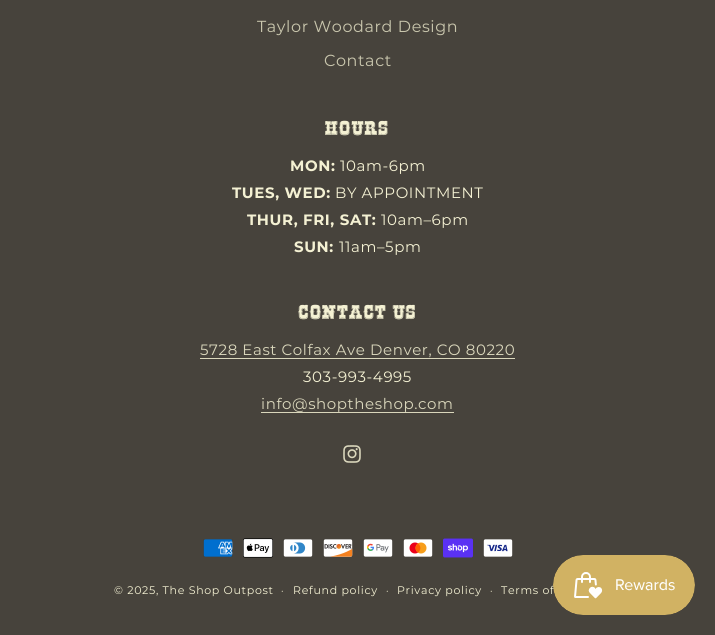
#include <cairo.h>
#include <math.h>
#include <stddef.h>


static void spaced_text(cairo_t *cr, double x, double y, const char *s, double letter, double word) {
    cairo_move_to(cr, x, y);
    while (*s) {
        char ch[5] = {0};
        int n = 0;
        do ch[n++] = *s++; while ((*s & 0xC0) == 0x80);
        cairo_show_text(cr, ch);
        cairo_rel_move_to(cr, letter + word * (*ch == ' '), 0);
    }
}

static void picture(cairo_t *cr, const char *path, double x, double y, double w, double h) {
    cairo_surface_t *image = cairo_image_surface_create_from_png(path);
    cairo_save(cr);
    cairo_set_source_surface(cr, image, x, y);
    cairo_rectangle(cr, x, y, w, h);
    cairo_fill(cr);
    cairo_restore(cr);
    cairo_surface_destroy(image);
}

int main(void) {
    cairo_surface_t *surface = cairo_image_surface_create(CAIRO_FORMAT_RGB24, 715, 635);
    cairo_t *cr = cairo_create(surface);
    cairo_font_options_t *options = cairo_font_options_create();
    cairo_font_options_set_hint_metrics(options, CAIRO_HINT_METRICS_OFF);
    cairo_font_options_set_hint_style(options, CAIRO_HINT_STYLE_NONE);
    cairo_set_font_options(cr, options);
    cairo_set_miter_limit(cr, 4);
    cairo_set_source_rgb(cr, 0.278, 0.263, 0.235);
    cairo_paint(cr);
    cairo_select_font_face(cr, "Montserrat", CAIRO_FONT_SLANT_NORMAL, CAIRO_FONT_WEIGHT_NORMAL);
    cairo_set_font_size(cr, 16);
    cairo_set_source_rgb(cr, 0.788, 0.776, 0.678);
    spaced_text(cr, 257, 32, "Taylor Woodard Design", 0.6, 0);
    spaced_text(cr, 324, 66, "Contact", 0.6, 0);
    cairo_select_font_face(cr, "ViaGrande", CAIRO_FONT_SLANT_NORMAL, CAIRO_FONT_WEIGHT_BOLD);
    cairo_set_font_size(cr, 20);
    cairo_set_source_rgb(cr, 0.957, 0.945, 0.827);
    spaced_text(cr, 325, 135, "HOURS", 1, 0);
    cairo_select_font_face(cr, "Montserrat", CAIRO_FONT_SLANT_NORMAL, CAIRO_FONT_WEIGHT_BOLD);
    cairo_set_font_size(cr, 15);
    spaced_text(cr, 290, 171, "MON:", 0.6, 0);
    cairo_select_font_face(cr, "Montserrat", CAIRO_FONT_SLANT_NORMAL, CAIRO_FONT_WEIGHT_NORMAL);
    spaced_text(cr, 340, 171, "10am-6pm", 0.6, 0);
    cairo_select_font_face(cr, "Montserrat", CAIRO_FONT_SLANT_NORMAL, CAIRO_FONT_WEIGHT_BOLD);
    spaced_text(cr, 232, 198, "TUES, WED:", 0.6, 0);
    cairo_select_font_face(cr, "Montserrat", CAIRO_FONT_SLANT_NORMAL, CAIRO_FONT_WEIGHT_NORMAL);
    spaced_text(cr, 335, 198, "BY APPOINTMENT", 0.6, 0);
    cairo_select_font_face(cr, "Montserrat", CAIRO_FONT_SLANT_NORMAL, CAIRO_FONT_WEIGHT_BOLD);
    spaced_text(cr, 247, 225, "THUR, FRI, SAT:", 0.6, 0);
    cairo_select_font_face(cr, "Montserrat", CAIRO_FONT_SLANT_NORMAL, CAIRO_FONT_WEIGHT_NORMAL);
    spaced_text(cr, 381, 225, "10am–6pm", 0.6, 0);
    cairo_select_font_face(cr, "Montserrat", CAIRO_FONT_SLANT_NORMAL, CAIRO_FONT_WEIGHT_BOLD);
    spaced_text(cr, 294, 252, "SUN:", 0.6, 0);
    cairo_select_font_face(cr, "Montserrat", CAIRO_FONT_SLANT_NORMAL, CAIRO_FONT_WEIGHT_NORMAL);
    spaced_text(cr, 339, 252, "11am–5pm", 0.6, 0);
    cairo_select_font_face(cr, "ViaGrande", CAIRO_FONT_SLANT_NORMAL, CAIRO_FONT_WEIGHT_BOLD);
    cairo_set_font_size(cr, 20);
    spaced_text(cr, 298, 319, "Contact Us", 1, 0);
    cairo_select_font_face(cr, "Montserrat", CAIRO_FONT_SLANT_NORMAL, CAIRO_FONT_WEIGHT_NORMAL);
    cairo_set_font_size(cr, 15);
    cairo_set_source_rgb(cr, 0.855, 0.843, 0.737);
    spaced_text(cr, 200, 355, "5728 East Colfax Ave Denver, CO 80220", 0.6, 0);
    cairo_rectangle(cr, 200, 358, 315, 1);
    cairo_fill(cr);
    cairo_set_source_rgb(cr, 0.957, 0.945, 0.827);
    spaced_text(cr, 303, 382, "303-993-4995", 0.6, 0);
    cairo_set_source_rgb(cr, 0.855, 0.843, 0.737);
    spaced_text(cr, 261, 409, "info@shoptheshop.com", 0.6, 0);
    cairo_rectangle(cr, 261, 412, 193, 1);
    cairo_fill(cr);
    picture(cr, "img1.png", 343, 445, 18, 18);
    picture(cr, "img2.png", 203, 539, 30, 18);
    picture(cr, "img3.png", 243, 538, 30, 20);
    picture(cr, "img4.png", 283, 539, 30, 18);
    picture(cr, "img5.png", 323, 539, 30, 18);
    picture(cr, "img6.png", 363, 539, 30, 18);
    picture(cr, "img7.png", 403, 539, 30, 18);
    picture(cr, "img8.png", 443, 538, 30, 20);
    picture(cr, "img9.png", 483, 539, 30, 18);
    cairo_set_font_size(cr, 11);
    cairo_set_source_rgb(cr, 0.957, 0.945, 0.827);
    spaced_text(cr, 114, 594, "© 2025, The Shop Outpost", 0.7, 0);
    cairo_set_font_size(cr, 10);
    spaced_text(cr, 281, 594, "·", 0.7, 0);
    cairo_set_font_size(cr, 11);
    spaced_text(cr, 293, 594, "Refund policy", 0.7, 0);
    cairo_set_font_size(cr, 10);
    spaced_text(cr, 386, 594, "·", 0.7, 0);
    cairo_set_font_size(cr, 11);
    spaced_text(cr, 397, 594, "Privacy policy", 0.7, 0);
    cairo_set_font_size(cr, 10);
    spaced_text(cr, 490, 594, "·", 0.7, 0);
    cairo_set_font_size(cr, 11);
    spaced_text(cr, 501, 594, "Terms of", 0.7, 0);
    picture(cr, "img10.png", 553, 555, 142, 60);
    cairo_surface_write_to_png(surface, "page.png");
    cairo_font_options_destroy(options);
    cairo_destroy(cr);
    cairo_surface_destroy(surface);
    return 0;
}
